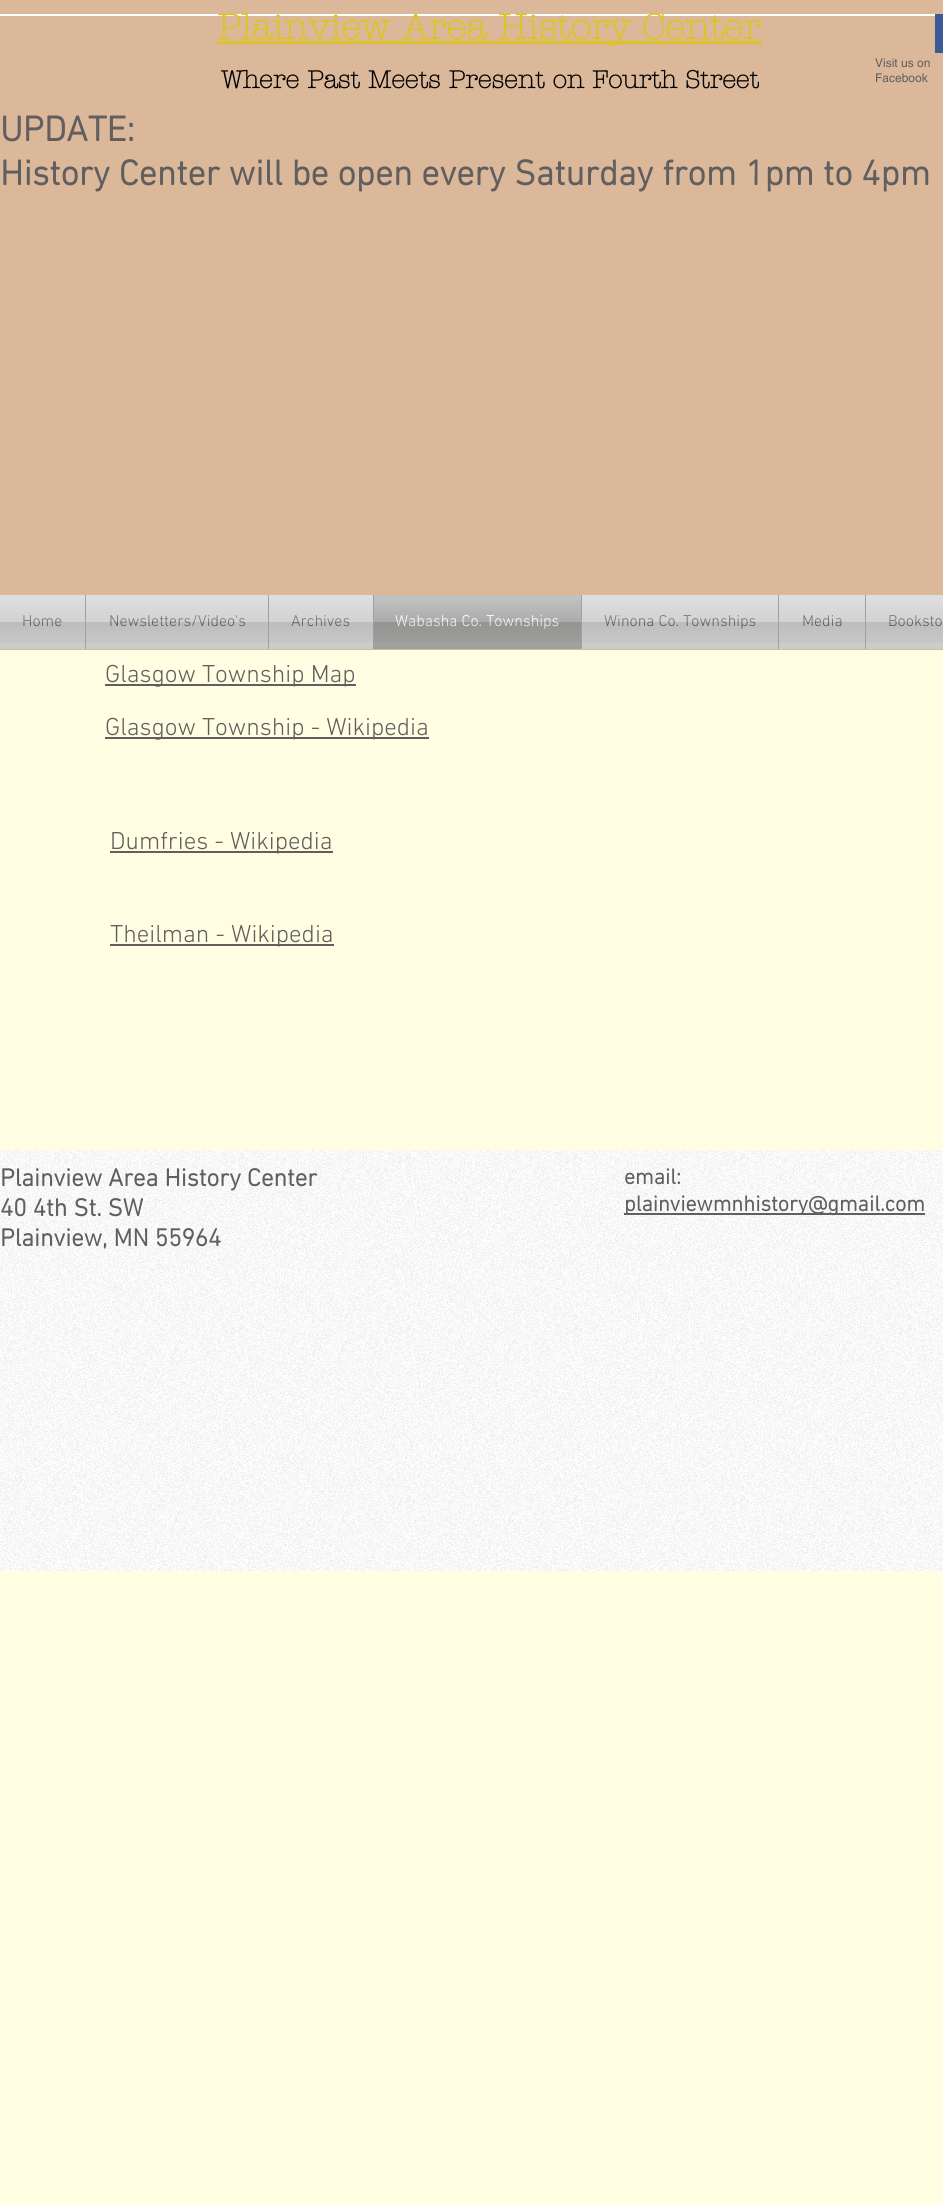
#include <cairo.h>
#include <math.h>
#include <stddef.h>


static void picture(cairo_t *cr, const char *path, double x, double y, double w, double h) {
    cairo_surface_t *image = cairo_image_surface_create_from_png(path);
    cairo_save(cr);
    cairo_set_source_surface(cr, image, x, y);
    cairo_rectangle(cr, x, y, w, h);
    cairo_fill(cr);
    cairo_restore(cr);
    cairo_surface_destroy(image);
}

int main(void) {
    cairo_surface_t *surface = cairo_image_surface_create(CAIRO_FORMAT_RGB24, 943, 2205);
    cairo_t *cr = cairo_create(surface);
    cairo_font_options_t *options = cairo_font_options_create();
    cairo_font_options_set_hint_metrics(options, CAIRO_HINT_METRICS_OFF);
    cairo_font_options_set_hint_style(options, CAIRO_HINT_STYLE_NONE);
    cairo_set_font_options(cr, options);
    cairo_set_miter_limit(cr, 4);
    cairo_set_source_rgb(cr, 1, 0.992, 0.886);
    cairo_paint(cr);
    cairo_set_source_rgb(cr, 0.859, 0.722, 0.604);
    cairo_rectangle(cr, 0, 0, 943, 650);
    cairo_fill(cr);
    cairo_set_source_rgb(cr, 1, 1, 1);
    cairo_rectangle(cr, 0, 14, 943, 2);
    cairo_fill(cr);
    cairo_set_source_rgb(cr, 0.871, 0.765, 0.157);
    cairo_rectangle(cr, 217, 41, 545, 3);
    cairo_fill(cr);
    cairo_select_font_face(cr, "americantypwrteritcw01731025", CAIRO_FONT_SLANT_NORMAL, CAIRO_FONT_WEIGHT_BOLD);
    cairo_set_font_size(cr, 36);
    cairo_move_to(cr, 217, 39);
    cairo_show_text(cr, "Plainview Area History Center");
    cairo_set_source_rgb(cr, 0.239, 0.353, 0.596);
    cairo_rectangle(cr, 935, 14, 8, 39);
    cairo_fill(cr);
    cairo_set_font_size(cr, 25);
    cairo_set_source_rgb(cr, 0, 0, 0);
    cairo_move_to(cr, 221, 88);
    cairo_show_text(cr, "Where Past Meets Present on Fourth Street");
    cairo_select_font_face(cr, "helvetica", CAIRO_FONT_SLANT_NORMAL, CAIRO_FONT_WEIGHT_NORMAL);
    cairo_set_font_size(cr, 12);
    cairo_set_source_rgb(cr, 0.376, 0.369, 0.369);
    cairo_move_to(cr, 875, 67);
    cairo_show_text(cr, "Visit us on");
    cairo_move_to(cr, 875, 82);
    cairo_show_text(cr, "Facebook");
    cairo_select_font_face(cr, "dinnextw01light", CAIRO_FONT_SLANT_NORMAL, CAIRO_FONT_WEIGHT_BOLD);
    cairo_set_font_size(cr, 36);
    cairo_move_to(cr, 0, 141);
    cairo_show_text(cr, "UPDATE:");
    cairo_move_to(cr, 0, 185);
    cairo_show_text(cr, "History Center will be open every Saturday from 1pm to 4pm");
    cairo_set_source_rgb(cr, 0.8, 0.8, 0.8);
    cairo_rectangle(cr, 0, 595, 85, 54);
    cairo_fill(cr);
    cairo_select_font_face(cr, "dinnextw01light Light", CAIRO_FONT_SLANT_NORMAL, CAIRO_FONT_WEIGHT_NORMAL);
    cairo_set_font_size(cr, 16);
    cairo_set_source_rgb(cr, 0.376, 0.369, 0.369);
    cairo_move_to(cr, 22, 626);
    cairo_show_text(cr, "Home");
    picture(cr, "img1.png", 0, 595, 85, 48);
    cairo_set_source_rgb(cr, 0.8, 0.8, 0.8);
    cairo_rectangle(cr, 86, 595, 182, 54);
    cairo_fill(cr);
    cairo_set_source_rgb(cr, 0.627, 0.627, 0.624);
    cairo_rectangle(cr, 85, 595, 1, 54);
    cairo_fill(cr);
    cairo_set_source_rgb(cr, 0.376, 0.369, 0.369);
    cairo_move_to(cr, 109, 626);
    cairo_show_text(cr, "Newsletters/Video's");
    picture(cr, "img2.png", 86, 595, 182, 48);
    cairo_set_source_rgb(cr, 0.8, 0.8, 0.8);
    cairo_rectangle(cr, 269, 595, 104, 54);
    cairo_fill(cr);
    cairo_set_source_rgb(cr, 0.627, 0.627, 0.624);
    cairo_rectangle(cr, 268, 595, 1, 54);
    cairo_fill(cr);
    cairo_set_source_rgb(cr, 0.376, 0.369, 0.369);
    cairo_move_to(cr, 291, 626);
    cairo_show_text(cr, "Archives");
    picture(cr, "img3.png", 269, 595, 104, 48);
    cairo_set_source_rgb(cr, 0.627, 0.627, 0.624);
    cairo_rectangle(cr, 373, 595, 209, 54);
    cairo_fill(cr);
    cairo_set_source_rgb(cr, 1, 1, 1);
    cairo_move_to(cr, 395, 626);
    cairo_show_text(cr, "Wabasha Co. Townships");
    picture(cr, "img4.png", 374, 595, 207, 47);
    cairo_set_source_rgb(cr, 0.8, 0.8, 0.8);
    cairo_rectangle(cr, 582, 595, 196, 54);
    cairo_fill(cr);
    cairo_set_source_rgb(cr, 0.376, 0.369, 0.369);
    cairo_move_to(cr, 604, 626);
    cairo_show_text(cr, "Winona Co. Townships");
    picture(cr, "img5.png", 582, 595, 196, 48);
    cairo_set_source_rgb(cr, 0.8, 0.8, 0.8);
    cairo_rectangle(cr, 779, 595, 86, 54);
    cairo_fill(cr);
    cairo_set_source_rgb(cr, 0.627, 0.627, 0.624);
    cairo_rectangle(cr, 778, 595, 1, 54);
    cairo_fill(cr);
    cairo_set_source_rgb(cr, 0.376, 0.369, 0.369);
    cairo_move_to(cr, 802, 626);
    cairo_show_text(cr, "Media");
    picture(cr, "img6.png", 779, 595, 86, 48);
    cairo_set_source_rgb(cr, 0.8, 0.8, 0.8);
    cairo_rectangle(cr, 866, 595, 77, 54);
    cairo_fill(cr);
    cairo_set_source_rgb(cr, 0.627, 0.627, 0.624);
    cairo_rectangle(cr, 865, 595, 1, 54);
    cairo_fill(cr);
    cairo_set_source_rgb(cr, 0.376, 0.369, 0.369);
    cairo_move_to(cr, 888, 626);
    cairo_show_text(cr, "Booksto");
    picture(cr, "img7.png", 866, 595, 77, 48);
    cairo_rectangle(cr, 105, 684, 251, 2);
    cairo_fill(cr);
    cairo_set_font_size(cr, 25);
    cairo_move_to(cr, 105, 682);
    cairo_show_text(cr, "Glasgow Township Map");
    cairo_rectangle(cr, 105, 737, 324, 2);
    cairo_fill(cr);
    cairo_move_to(cr, 105, 735);
    cairo_show_text(cr, "Glasgow Township - Wikipedia");
    cairo_rectangle(cr, 110, 851, 223, 2);
    cairo_fill(cr);
    cairo_move_to(cr, 110, 849);
    cairo_show_text(cr, "Dumfries - Wikipedia");
    cairo_rectangle(cr, 110, 944, 224, 2);
    cairo_fill(cr);
    cairo_move_to(cr, 110, 942);
    cairo_show_text(cr, "Theilman - Wikipedia");
    cairo_set_source_rgb(cr, 1, 1, 1);
    cairo_rectangle(cr, 0, 1150, 943, 421);
    cairo_fill(cr);
    picture(cr, "img8.png", 0, 1150, 943, 421);
    cairo_select_font_face(cr, "dinnextw01light", CAIRO_FONT_SLANT_NORMAL, CAIRO_FONT_WEIGHT_BOLD);
    cairo_set_source_rgb(cr, 0.376, 0.369, 0.369);
    cairo_move_to(cr, 0, 1186);
    cairo_show_text(cr, "Plainview Area History Center");
    cairo_move_to(cr, 0, 1216);
    cairo_show_text(cr, "40 4th St. SW");
    cairo_move_to(cr, 0, 1246);
    cairo_show_text(cr, "Plainview, MN 55964");
    cairo_set_font_size(cr, 22);
    cairo_move_to(cr, 624, 1184);
    cairo_show_text(cr, "email:");
    cairo_rectangle(cr, 624, 1213, 301, 2);
    cairo_fill(cr);
    cairo_move_to(cr, 624, 1211);
    cairo_show_text(cr, "plainviewmnhistory@gmail.com");
    cairo_surface_write_to_png(surface, "page.png");
    cairo_font_options_destroy(options);
    cairo_destroy(cr);
    cairo_surface_destroy(surface);
    return 0;
}
